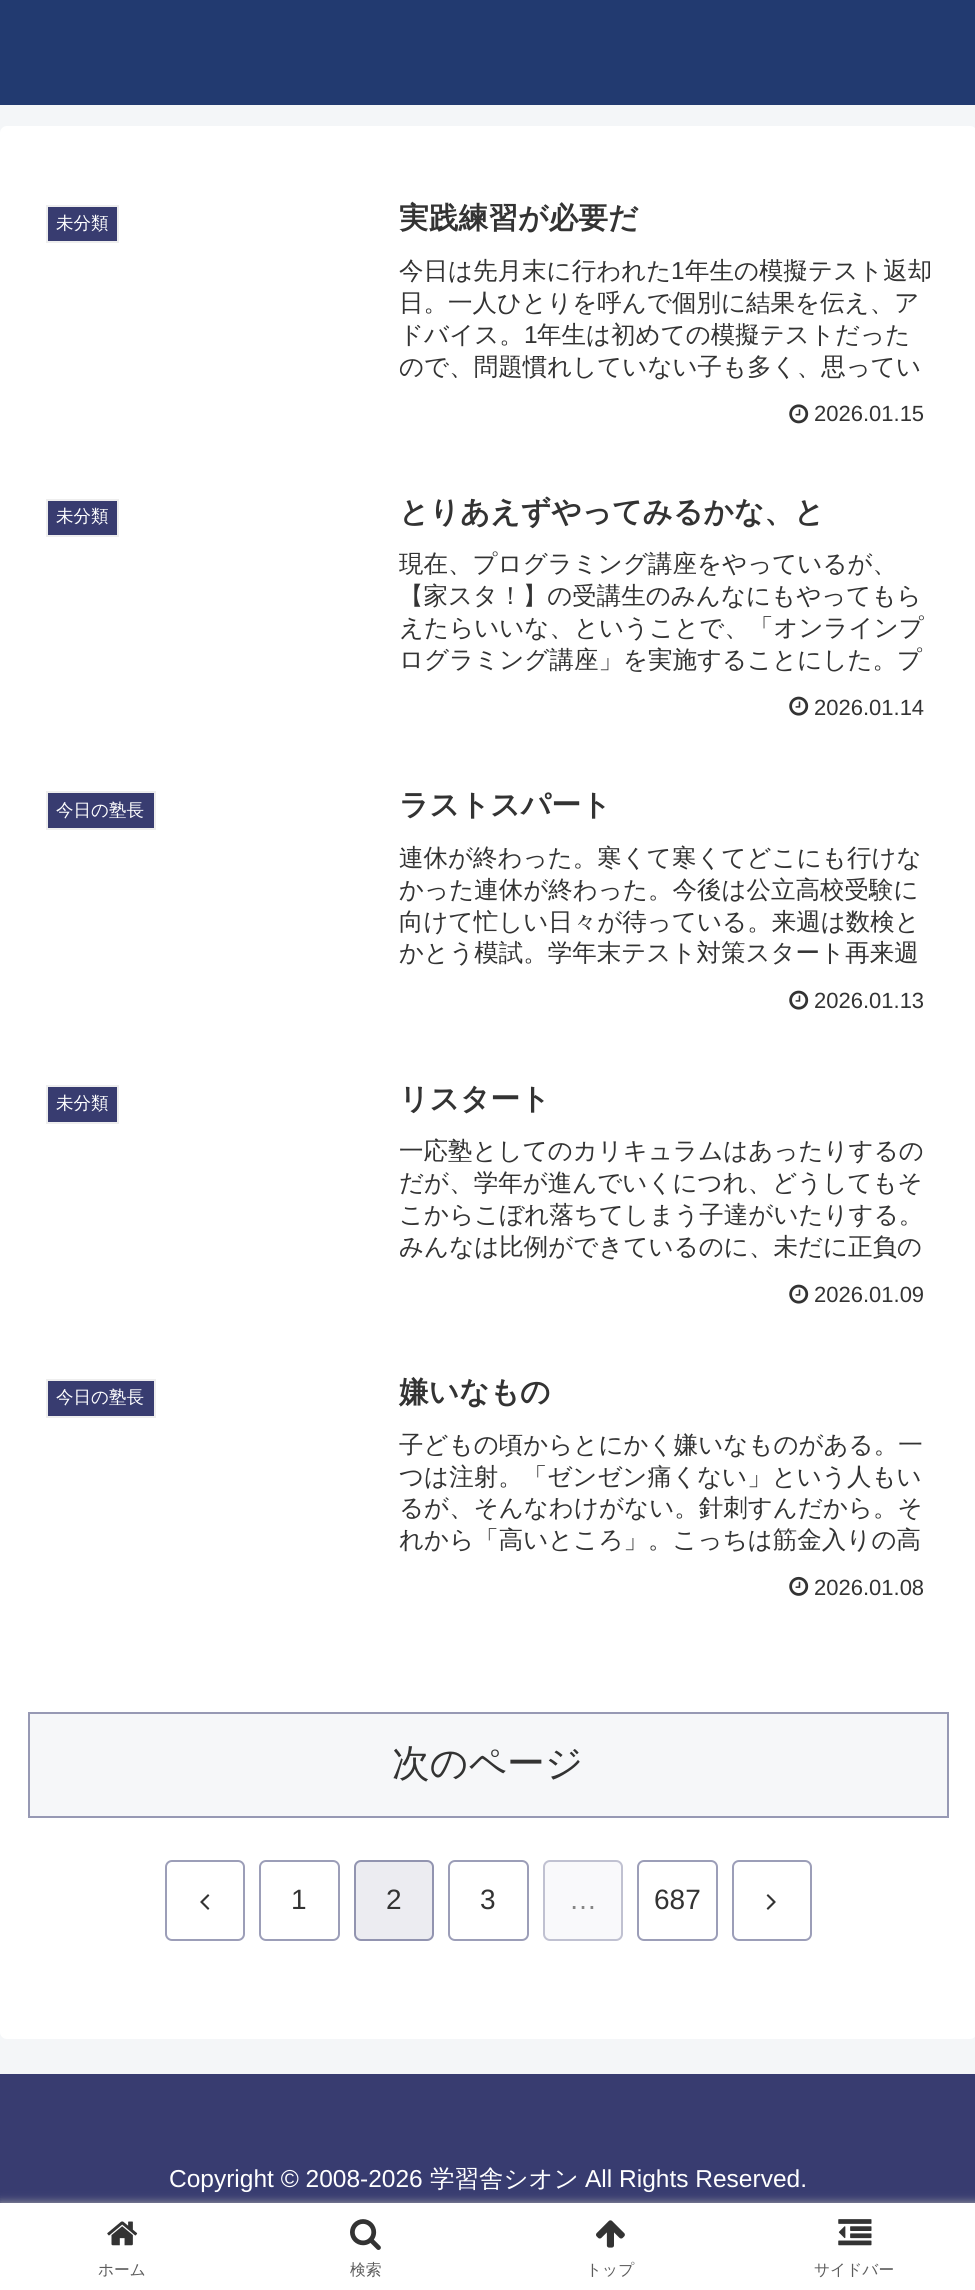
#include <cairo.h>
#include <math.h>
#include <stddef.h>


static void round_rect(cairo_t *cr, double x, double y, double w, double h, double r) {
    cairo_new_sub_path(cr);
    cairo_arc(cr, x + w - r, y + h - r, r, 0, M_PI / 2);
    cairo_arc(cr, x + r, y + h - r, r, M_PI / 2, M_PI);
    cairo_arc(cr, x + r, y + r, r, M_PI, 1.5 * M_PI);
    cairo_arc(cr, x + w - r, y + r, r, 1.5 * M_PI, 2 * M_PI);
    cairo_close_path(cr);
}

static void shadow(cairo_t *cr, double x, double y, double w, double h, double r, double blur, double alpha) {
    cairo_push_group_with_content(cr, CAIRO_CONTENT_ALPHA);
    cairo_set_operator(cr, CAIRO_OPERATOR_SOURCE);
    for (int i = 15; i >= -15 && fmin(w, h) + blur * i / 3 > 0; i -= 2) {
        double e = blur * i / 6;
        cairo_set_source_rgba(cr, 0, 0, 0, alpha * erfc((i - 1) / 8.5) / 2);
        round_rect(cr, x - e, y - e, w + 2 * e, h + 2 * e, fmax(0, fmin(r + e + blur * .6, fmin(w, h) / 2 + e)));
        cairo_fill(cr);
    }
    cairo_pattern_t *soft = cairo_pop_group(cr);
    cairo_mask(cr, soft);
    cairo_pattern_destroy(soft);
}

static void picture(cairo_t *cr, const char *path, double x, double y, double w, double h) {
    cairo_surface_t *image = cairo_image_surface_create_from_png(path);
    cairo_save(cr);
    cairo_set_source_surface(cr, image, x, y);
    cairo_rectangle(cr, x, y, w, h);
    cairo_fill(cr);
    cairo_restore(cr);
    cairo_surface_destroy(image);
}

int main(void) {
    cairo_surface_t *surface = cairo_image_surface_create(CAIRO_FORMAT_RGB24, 975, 2290);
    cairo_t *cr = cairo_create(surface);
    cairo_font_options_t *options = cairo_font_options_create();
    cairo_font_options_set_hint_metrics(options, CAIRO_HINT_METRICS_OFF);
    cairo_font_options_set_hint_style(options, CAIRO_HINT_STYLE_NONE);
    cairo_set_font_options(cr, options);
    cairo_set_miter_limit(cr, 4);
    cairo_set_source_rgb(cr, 0.957, 0.961, 0.969);
    cairo_paint(cr);
    cairo_set_source_rgb(cr, 0.133, 0.227, 0.439);
    cairo_rectangle(cr, 0, 0, 975, 105);
    cairo_fill(cr);
    cairo_set_source_rgb(cr, 1, 1, 1);
    round_rect(cr, 0, 126, 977, 1913, 7);
    cairo_fill(cr);
    cairo_set_source_rgb(cr, 0.22, 0.235, 0.439);
    cairo_rectangle(cr, 47, 206, 71, 36);
    cairo_fill_preserve(cr);
    cairo_set_source_rgb(cr, 0.933, 0.933, 0.933);
    cairo_stroke(cr);
    cairo_select_font_face(cr, "WenQuanYi Zen Hei Medium", CAIRO_FONT_SLANT_NORMAL, CAIRO_FONT_WEIGHT_NORMAL);
    cairo_set_font_size(cr, 17.5);
    cairo_set_source_rgb(cr, 1, 1, 1);
    cairo_move_to(cr, 56, 229);
    cairo_show_text(cr, "未分類");
    cairo_select_font_face(cr, "WenQuanYi Zen Hei", CAIRO_FONT_SLANT_NORMAL, CAIRO_FONT_WEIGHT_BOLD);
    cairo_set_font_size(cr, 29.75);
    cairo_set_source_rgb(cr, 0.2, 0.2, 0.2);
    cairo_move_to(cr, 399, 228);
    cairo_show_text(cr, "実践練習が必要だ");
    cairo_select_font_face(cr, "WenQuanYi Zen Hei Medium", CAIRO_FONT_SLANT_NORMAL, CAIRO_FONT_WEIGHT_NORMAL);
    cairo_set_font_size(cr, 24.5);
    cairo_move_to(cr, 399, 279);
    cairo_show_text(cr, "今日は先月末に行われた");
    cairo_select_font_face(cr, "Liberation Sans", CAIRO_FONT_SLANT_NORMAL, CAIRO_FONT_WEIGHT_NORMAL);
    cairo_move_to(cr, 671, 279);
    cairo_show_text(cr, "1");
    cairo_select_font_face(cr, "WenQuanYi Zen Hei Medium", CAIRO_FONT_SLANT_NORMAL, CAIRO_FONT_WEIGHT_NORMAL);
    cairo_move_to(cr, 685, 279);
    cairo_show_text(cr, "年生の模擬テスト返却");
    cairo_move_to(cr, 399, 311);
    cairo_show_text(cr, "日。一人ひとりを呼んで個別に結果を伝え、ア");
    cairo_move_to(cr, 399, 343);
    cairo_show_text(cr, "ドバイス。");
    cairo_select_font_face(cr, "Liberation Sans", CAIRO_FONT_SLANT_NORMAL, CAIRO_FONT_WEIGHT_NORMAL);
    cairo_move_to(cr, 524, 343);
    cairo_show_text(cr, "1");
    cairo_select_font_face(cr, "WenQuanYi Zen Hei Medium", CAIRO_FONT_SLANT_NORMAL, CAIRO_FONT_WEIGHT_NORMAL);
    cairo_move_to(cr, 537, 343);
    cairo_show_text(cr, "年生は初めての模擬テストだった");
    cairo_move_to(cr, 399, 375);
    cairo_show_text(cr, "ので、問題慣れしていない子も多く、思ってい");
    picture(cr, "img1.png", 789, 404, 20, 20);
    cairo_select_font_face(cr, "Liberation Sans", CAIRO_FONT_SLANT_NORMAL, CAIRO_FONT_WEIGHT_NORMAL);
    cairo_set_font_size(cr, 22);
    cairo_move_to(cr, 814, 421);
    cairo_show_text(cr, "2026.01.15");
    cairo_set_source_rgb(cr, 0.22, 0.235, 0.439);
    cairo_rectangle(cr, 47, 500, 71, 36);
    cairo_fill_preserve(cr);
    cairo_set_source_rgb(cr, 0.933, 0.933, 0.933);
    cairo_stroke(cr);
    cairo_select_font_face(cr, "WenQuanYi Zen Hei Medium", CAIRO_FONT_SLANT_NORMAL, CAIRO_FONT_WEIGHT_NORMAL);
    cairo_set_font_size(cr, 17.5);
    cairo_set_source_rgb(cr, 1, 1, 1);
    cairo_move_to(cr, 56, 522);
    cairo_show_text(cr, "未分類");
    cairo_select_font_face(cr, "WenQuanYi Zen Hei", CAIRO_FONT_SLANT_NORMAL, CAIRO_FONT_WEIGHT_BOLD);
    cairo_set_font_size(cr, 29.75);
    cairo_set_source_rgb(cr, 0.2, 0.2, 0.2);
    cairo_move_to(cr, 399, 522);
    cairo_show_text(cr, "とりあえずやってみるかな、と");
    cairo_select_font_face(cr, "WenQuanYi Zen Hei Medium", CAIRO_FONT_SLANT_NORMAL, CAIRO_FONT_WEIGHT_NORMAL);
    cairo_set_font_size(cr, 24.5);
    cairo_move_to(cr, 399, 572);
    cairo_show_text(cr, "現在、プログラミング講座をやっているが、");
    cairo_move_to(cr, 399, 604);
    cairo_show_text(cr, "【家スタ！】の受講生のみんなにもやってもら");
    cairo_move_to(cr, 399, 636);
    cairo_show_text(cr, "えたらいいな、ということで、「オンラインプ");
    cairo_move_to(cr, 399, 668);
    cairo_show_text(cr, "ログラミング講座」を実施することにした。プ");
    picture(cr, "img2.png", 789, 696, 20, 20);
    cairo_select_font_face(cr, "Liberation Sans", CAIRO_FONT_SLANT_NORMAL, CAIRO_FONT_WEIGHT_NORMAL);
    cairo_set_font_size(cr, 22);
    cairo_move_to(cr, 814, 715);
    cairo_show_text(cr, "2026.01.14");
    cairo_set_source_rgb(cr, 0.22, 0.235, 0.439);
    cairo_rectangle(cr, 47, 792, 108, 37);
    cairo_fill_preserve(cr);
    cairo_set_source_rgb(cr, 0.933, 0.933, 0.933);
    cairo_stroke(cr);
    cairo_select_font_face(cr, "WenQuanYi Zen Hei Medium", CAIRO_FONT_SLANT_NORMAL, CAIRO_FONT_WEIGHT_NORMAL);
    cairo_set_font_size(cr, 17.5);
    cairo_set_source_rgb(cr, 1, 1, 1);
    cairo_move_to(cr, 56, 816);
    cairo_show_text(cr, "今日の塾長");
    cairo_select_font_face(cr, "WenQuanYi Zen Hei", CAIRO_FONT_SLANT_NORMAL, CAIRO_FONT_WEIGHT_BOLD);
    cairo_set_font_size(cr, 29.75);
    cairo_set_source_rgb(cr, 0.2, 0.2, 0.2);
    cairo_move_to(cr, 399, 815);
    cairo_show_text(cr, "ラストスパート");
    cairo_select_font_face(cr, "WenQuanYi Zen Hei Medium", CAIRO_FONT_SLANT_NORMAL, CAIRO_FONT_WEIGHT_NORMAL);
    cairo_set_font_size(cr, 24.5);
    cairo_move_to(cr, 399, 866);
    cairo_show_text(cr, "連休が終わった。寒くて寒くてどこにも行けな");
    cairo_move_to(cr, 399, 898);
    cairo_show_text(cr, "かった連休が終わった。今後は公立高校受験に");
    cairo_move_to(cr, 399, 930);
    cairo_show_text(cr, "向けて忙しい日々が待っている。来週は数検と");
    cairo_move_to(cr, 399, 961);
    cairo_show_text(cr, "かとう模試。学年末テスト対策スタート再来週");
    picture(cr, "img2.png", 789, 990, 20, 20);
    cairo_select_font_face(cr, "Liberation Sans", CAIRO_FONT_SLANT_NORMAL, CAIRO_FONT_WEIGHT_NORMAL);
    cairo_set_font_size(cr, 22);
    cairo_move_to(cr, 814, 1008);
    cairo_show_text(cr, "2026.01.13");
    cairo_set_source_rgb(cr, 0.22, 0.235, 0.439);
    cairo_rectangle(cr, 47, 1086, 71, 37);
    cairo_fill_preserve(cr);
    cairo_set_source_rgb(cr, 0.933, 0.933, 0.933);
    cairo_stroke(cr);
    cairo_select_font_face(cr, "WenQuanYi Zen Hei Medium", CAIRO_FONT_SLANT_NORMAL, CAIRO_FONT_WEIGHT_NORMAL);
    cairo_set_font_size(cr, 17.5);
    cairo_set_source_rgb(cr, 1, 1, 1);
    cairo_move_to(cr, 56, 1109);
    cairo_show_text(cr, "未分類");
    cairo_select_font_face(cr, "WenQuanYi Zen Hei", CAIRO_FONT_SLANT_NORMAL, CAIRO_FONT_WEIGHT_BOLD);
    cairo_set_font_size(cr, 29.75);
    cairo_set_source_rgb(cr, 0.2, 0.2, 0.2);
    cairo_move_to(cr, 399, 1109);
    cairo_show_text(cr, "リスタート");
    cairo_select_font_face(cr, "WenQuanYi Zen Hei Medium", CAIRO_FONT_SLANT_NORMAL, CAIRO_FONT_WEIGHT_NORMAL);
    cairo_set_font_size(cr, 24.5);
    cairo_move_to(cr, 399, 1159);
    cairo_show_text(cr, "一応塾としてのカリキュラムはあったりするの");
    cairo_move_to(cr, 399, 1191);
    cairo_show_text(cr, "だが、学年が進んでいくにつれ、どうしてもそ");
    cairo_move_to(cr, 399, 1223);
    cairo_show_text(cr, "こからこぼれ落ちてしまう子達がいたりする。");
    cairo_move_to(cr, 399, 1255);
    cairo_show_text(cr, "みんなは比例ができているのに、未だに正負の");
    picture(cr, "img2.png", 789, 1284, 20, 20);
    cairo_select_font_face(cr, "Liberation Sans", CAIRO_FONT_SLANT_NORMAL, CAIRO_FONT_WEIGHT_NORMAL);
    cairo_set_font_size(cr, 22);
    cairo_move_to(cr, 814, 1302);
    cairo_show_text(cr, "2026.01.09");
    cairo_set_source_rgb(cr, 0.22, 0.235, 0.439);
    cairo_rectangle(cr, 47, 1380, 108, 37);
    cairo_fill_preserve(cr);
    cairo_set_source_rgb(cr, 0.933, 0.933, 0.933);
    cairo_stroke(cr);
    cairo_select_font_face(cr, "WenQuanYi Zen Hei Medium", CAIRO_FONT_SLANT_NORMAL, CAIRO_FONT_WEIGHT_NORMAL);
    cairo_set_font_size(cr, 17.5);
    cairo_set_source_rgb(cr, 1, 1, 1);
    cairo_move_to(cr, 56, 1403);
    cairo_show_text(cr, "今日の塾長");
    cairo_select_font_face(cr, "WenQuanYi Zen Hei", CAIRO_FONT_SLANT_NORMAL, CAIRO_FONT_WEIGHT_BOLD);
    cairo_set_font_size(cr, 29.75);
    cairo_set_source_rgb(cr, 0.2, 0.2, 0.2);
    cairo_move_to(cr, 399, 1402);
    cairo_show_text(cr, "嫌いなもの");
    cairo_select_font_face(cr, "WenQuanYi Zen Hei Medium", CAIRO_FONT_SLANT_NORMAL, CAIRO_FONT_WEIGHT_NORMAL);
    cairo_set_font_size(cr, 24.5);
    cairo_move_to(cr, 399, 1453);
    cairo_show_text(cr, "子どもの頃からとにかく嫌いなものがある。一");
    cairo_move_to(cr, 399, 1485);
    cairo_show_text(cr, "つは注射。「ゼンゼン痛くない」という人もい");
    cairo_move_to(cr, 399, 1516);
    cairo_show_text(cr, "るが、そんなわけがない。針刺すんだから。そ");
    cairo_move_to(cr, 399, 1548);
    cairo_show_text(cr, "れから「高いところ」。こっちは筋金入りの高");
    picture(cr, "img3.png", 789, 1576, 20, 20);
    cairo_select_font_face(cr, "Liberation Sans", CAIRO_FONT_SLANT_NORMAL, CAIRO_FONT_WEIGHT_NORMAL);
    cairo_set_font_size(cr, 22);
    cairo_move_to(cr, 814, 1595);
    cairo_show_text(cr, "2026.01.08");
    cairo_set_source_rgb(cr, 0.961, 0.965, 0.973);
    cairo_rectangle(cr, 29, 1713, 919, 104);
    cairo_fill_preserve(cr);
    cairo_set_source_rgb(cr, 0.592, 0.6, 0.706);
    cairo_stroke(cr);
    cairo_select_font_face(cr, "WenQuanYi Zen Hei Medium", CAIRO_FONT_SLANT_NORMAL, CAIRO_FONT_WEIGHT_NORMAL);
    cairo_set_font_size(cr, 37.75);
    cairo_set_source_rgb(cr, 0.2, 0.2, 0.2);
    cairo_move_to(cr, 392, 1776);
    cairo_show_text(cr, "次のページ");
    round_rect(cr, 166, 1861, 78, 79, 6);
    cairo_set_source_rgb(cr, 0.612, 0.62, 0.722);
    cairo_stroke(cr);
    picture(cr, "img4.png", 200, 1894, 10, 16);
    round_rect(cr, 260, 1861, 79, 79, 6);
    cairo_stroke(cr);
    cairo_select_font_face(cr, "Liberation Sans", CAIRO_FONT_SLANT_NORMAL, CAIRO_FONT_WEIGHT_NORMAL);
    cairo_set_font_size(cr, 28);
    cairo_set_source_rgb(cr, 0.2, 0.2, 0.2);
    cairo_move_to(cr, 291, 1909);
    cairo_show_text(cr, "1");
    cairo_set_source_rgb(cr, 0.922, 0.925, 0.945);
    round_rect(cr, 354, 1860, 80, 81, 7);
    cairo_fill(cr);
    round_rect(cr, 355, 1861, 78, 79, 6);
    cairo_set_source_rgba(cr, 0.22, 0.235, 0.439, 0.5);
    cairo_stroke(cr);
    cairo_set_source_rgb(cr, 0.2, 0.2, 0.2);
    cairo_move_to(cr, 386, 1909);
    cairo_show_text(cr, "2");
    round_rect(cr, 449, 1861, 79, 79, 6);
    cairo_set_source_rgb(cr, 0.612, 0.62, 0.722);
    cairo_stroke(cr);
    cairo_set_source_rgb(cr, 0.2, 0.2, 0.2);
    cairo_move_to(cr, 480, 1909);
    cairo_show_text(cr, "3");
    cairo_set_source_rgb(cr, 0.976, 0.976, 0.984);
    round_rect(cr, 543, 1860, 80, 81, 7);
    cairo_fill(cr);
    round_rect(cr, 544, 1861, 78, 79, 6);
    cairo_set_source_rgba(cr, 0.533, 0.541, 0.663, 0.5);
    cairo_stroke(cr);
    cairo_set_source_rgb(cr, 0.522, 0.522, 0.522);
    cairo_move_to(cr, 569, 1909);
    cairo_show_text(cr, "…");
    round_rect(cr, 638, 1861, 79, 79, 6);
    cairo_set_source_rgb(cr, 0.612, 0.62, 0.722);
    cairo_stroke(cr);
    cairo_set_source_rgb(cr, 0.2, 0.2, 0.2);
    cairo_move_to(cr, 654, 1909);
    cairo_show_text(cr, "687");
    round_rect(cr, 733, 1861, 78, 79, 6);
    cairo_set_source_rgb(cr, 0.612, 0.62, 0.722);
    cairo_stroke(cr);
    picture(cr, "img5.png", 766, 1894, 10, 16);
    cairo_set_source_rgb(cr, 0.22, 0.235, 0.439);
    cairo_rectangle(cr, 0, 2074, 975, 129);
    cairo_fill(cr);
    cairo_set_font_size(cr, 24.5);
    cairo_set_source_rgb(cr, 1, 1, 1);
    cairo_move_to(cr, 169, 2187);
    cairo_show_text(cr, "Copyright © 2008-2026");
    cairo_select_font_face(cr, "WenQuanYi Zen Hei Medium", CAIRO_FONT_SLANT_NORMAL, CAIRO_FONT_WEIGHT_NORMAL);
    cairo_move_to(cr, 430, 2187);
    cairo_show_text(cr, "学習舎シオン");
    cairo_select_font_face(cr, "Liberation Sans", CAIRO_FONT_SLANT_NORMAL, CAIRO_FONT_WEIGHT_NORMAL);
    cairo_move_to(cr, 585, 2187);
    cairo_show_text(cr, "All Rights Reserved.");
    cairo_set_source_rgb(cr, 0.663, 0.663, 0.663);
    shadow(cr, 0, 2203, 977, 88, 0, 4.5, 1);
    cairo_set_source_rgb(cr, 1, 1, 1);
    cairo_rectangle(cr, 0, 2203, 975, 87);
    cairo_fill(cr);
    picture(cr, "img6.png", 107, 2221, 31, 25);
    cairo_select_font_face(cr, "WenQuanYi Zen Hei Medium", CAIRO_FONT_SLANT_NORMAL, CAIRO_FONT_WEIGHT_NORMAL);
    cairo_set_font_size(cr, 15.75);
    cairo_set_source_rgb(cr, 0.361, 0.361, 0.361);
    cairo_move_to(cr, 98, 2275);
    cairo_show_text(cr, "ホーム");
    picture(cr, "img7.png", 350, 2219, 31, 31);
    cairo_move_to(cr, 350, 2275);
    cairo_show_text(cr, "検索");
    picture(cr, "img8.png", 596, 2220, 29, 28);
    cairo_move_to(cr, 586, 2275);
    cairo_show_text(cr, "トップ");
    picture(cr, "img9.png", 838, 2219, 34, 27);
    cairo_move_to(cr, 814, 2275);
    cairo_show_text(cr, "サイドバー");
    cairo_surface_write_to_png(surface, "page.png");
    cairo_font_options_destroy(options);
    cairo_destroy(cr);
    cairo_surface_destroy(surface);
    return 0;
}
